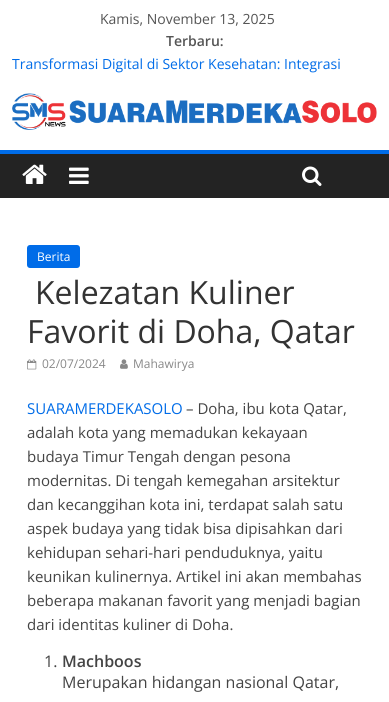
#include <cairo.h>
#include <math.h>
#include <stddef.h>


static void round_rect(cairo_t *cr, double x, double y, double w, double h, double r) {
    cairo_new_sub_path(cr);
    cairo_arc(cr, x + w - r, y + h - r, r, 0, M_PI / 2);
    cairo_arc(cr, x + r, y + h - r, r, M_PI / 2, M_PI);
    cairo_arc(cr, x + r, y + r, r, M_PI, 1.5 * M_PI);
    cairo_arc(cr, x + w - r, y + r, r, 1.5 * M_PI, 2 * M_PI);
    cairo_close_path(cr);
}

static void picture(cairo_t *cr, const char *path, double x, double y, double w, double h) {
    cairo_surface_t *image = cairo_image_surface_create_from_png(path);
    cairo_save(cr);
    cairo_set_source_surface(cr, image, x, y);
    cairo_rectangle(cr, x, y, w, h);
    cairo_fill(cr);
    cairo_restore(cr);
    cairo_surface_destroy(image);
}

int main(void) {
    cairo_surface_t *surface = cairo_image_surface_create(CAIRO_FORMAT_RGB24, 389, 702);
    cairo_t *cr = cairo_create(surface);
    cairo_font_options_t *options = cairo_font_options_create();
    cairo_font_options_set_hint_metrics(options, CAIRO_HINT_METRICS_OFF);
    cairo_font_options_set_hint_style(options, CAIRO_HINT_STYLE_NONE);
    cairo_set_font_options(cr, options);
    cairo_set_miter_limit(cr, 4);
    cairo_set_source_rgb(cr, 1, 1, 1);
    cairo_paint(cr);
    cairo_select_font_face(cr, "Open Sans", CAIRO_FONT_SLANT_NORMAL, CAIRO_FONT_WEIGHT_NORMAL);
    cairo_set_font_size(cr, 14);
    cairo_set_source_rgb(cr, 0.333, 0.333, 0.333);
    cairo_move_to(cr, 100, 24);
    cairo_show_text(cr, "Kamis, November 13, 2025");
    cairo_select_font_face(cr, "Open Sans SemiBold", CAIRO_FONT_SLANT_NORMAL, CAIRO_FONT_WEIGHT_NORMAL);
    cairo_move_to(cr, 166, 46);
    cairo_show_text(cr, "Terbaru:");
    cairo_select_font_face(cr, "Open Sans", CAIRO_FONT_SLANT_NORMAL, CAIRO_FONT_WEIGHT_NORMAL);
    cairo_set_source_rgb(cr, 0, 0.424, 0.91);
    cairo_move_to(cr, 12, 69);
    cairo_show_text(cr, "Transformasi Digital di Sektor Kesehatan: Integrasi");
    picture(cr, "img1.png", 12, 93, 365, 37);
    cairo_set_source_rgb(cr, 0.137, 0.137, 0.137);
    cairo_rectangle(cr, 0, 154, 389, 44);
    cairo_fill(cr);
    cairo_set_source_rgb(cr, 0, 0.424, 0.91);
    cairo_rectangle(cr, 0, 150, 389, 4);
    cairo_fill(cr);
    picture(cr, "img2.png", 22, 164, 25, 20);
    picture(cr, "img3.png", 69, 167, 20, 17);
    picture(cr, "img4.png", 302, 166, 20, 20);
    round_rect(cr, 27, 245, 53, 23, 3);
    cairo_fill(cr);
    cairo_set_font_size(cr, 12);
    cairo_set_source_rgb(cr, 1, 1, 1);
    cairo_move_to(cr, 37, 261);
    cairo_show_text(cr, "Berita");
    cairo_set_font_size(cr, 32);
    cairo_set_source_rgb(cr, 0.2, 0.2, 0.2);
    cairo_move_to(cr, 35, 304);
    cairo_show_text(cr, "Kelezatan Kuliner");
    cairo_move_to(cr, 27, 343);
    cairo_show_text(cr, "Favorit di Doha, Qatar");
    picture(cr, "img5.png", 27, 359, 10, 11);
    cairo_set_font_size(cr, 12);
    cairo_set_source_rgb(cr, 0.533, 0.533, 0.533);
    cairo_move_to(cr, 42, 368);
    cairo_show_text(cr, "02/07/2024");
    picture(cr, "img6.png", 120, 359, 8, 10);
    cairo_move_to(cr, 133, 368);
    cairo_show_text(cr, "Mahawirya");
    cairo_set_font_size(cr, 15);
    cairo_set_source_rgb(cr, 0, 0.424, 0.91);
    cairo_move_to(cr, 27, 414);
    cairo_show_text(cr, "SUARAMERDEKASOLO");
    cairo_set_source_rgb(cr, 0.267, 0.267, 0.267);
    cairo_move_to(cr, 186, 414);
    cairo_show_text(cr, "– Doha, ibu kota Qatar,");
    cairo_move_to(cr, 27, 438);
    cairo_show_text(cr, "adalah kota yang memadukan kekayaan");
    cairo_move_to(cr, 27, 462);
    cairo_show_text(cr, "budaya Timur Tengah dengan pesona");
    cairo_move_to(cr, 27, 486);
    cairo_show_text(cr, "modernitas. Di tengah kemegahan arsitektur");
    cairo_move_to(cr, 27, 510);
    cairo_show_text(cr, "dan kecanggihan kota ini, terdapat salah satu");
    cairo_move_to(cr, 27, 534);
    cairo_show_text(cr, "aspek budaya yang tidak bisa dipisahkan dari");
    cairo_move_to(cr, 27, 558);
    cairo_show_text(cr, "kehidupan sehari-hari penduduknya, yaitu");
    cairo_move_to(cr, 27, 582);
    cairo_show_text(cr, "keunikan kulinernya. Artikel ini akan membahas");
    cairo_move_to(cr, 27, 606);
    cairo_show_text(cr, "beberapa makanan favorit yang menjadi bagian");
    cairo_move_to(cr, 27, 630);
    cairo_show_text(cr, "dari identitas kuliner di Doha.");
    cairo_set_font_size(cr, 16);
    cairo_move_to(cr, 44, 667);
    cairo_show_text(cr, "1.");
    cairo_select_font_face(cr, "Open Sans SemiBold", CAIRO_FONT_SLANT_NORMAL, CAIRO_FONT_WEIGHT_NORMAL);
    cairo_move_to(cr, 62, 667);
    cairo_show_text(cr, "Machboos");
    cairo_select_font_face(cr, "Open Sans", CAIRO_FONT_SLANT_NORMAL, CAIRO_FONT_WEIGHT_NORMAL);
    cairo_move_to(cr, 62, 688);
    cairo_show_text(cr, "Merupakan hidangan nasional Qatar,");
    cairo_surface_write_to_png(surface, "page.png");
    cairo_font_options_destroy(options);
    cairo_destroy(cr);
    cairo_surface_destroy(surface);
    return 0;
}
